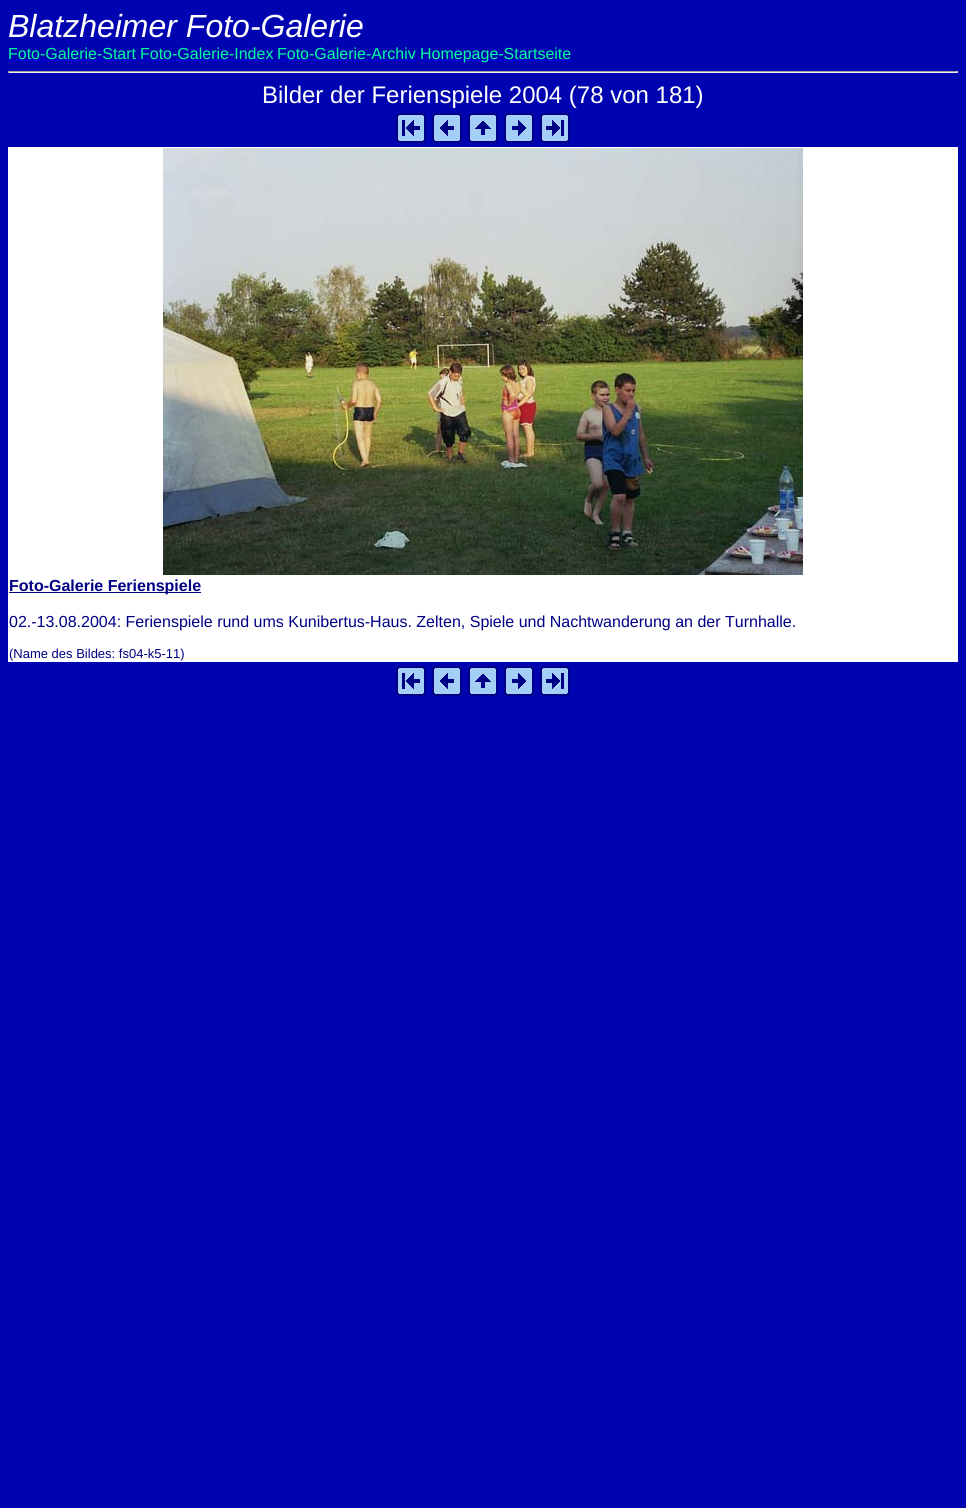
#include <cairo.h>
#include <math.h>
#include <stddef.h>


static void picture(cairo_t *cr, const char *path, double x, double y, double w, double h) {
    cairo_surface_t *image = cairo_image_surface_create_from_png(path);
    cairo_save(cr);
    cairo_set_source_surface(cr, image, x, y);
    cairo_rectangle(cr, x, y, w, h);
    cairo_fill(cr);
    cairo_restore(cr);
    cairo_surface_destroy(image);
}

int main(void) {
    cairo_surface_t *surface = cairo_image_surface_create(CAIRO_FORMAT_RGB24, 966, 1508);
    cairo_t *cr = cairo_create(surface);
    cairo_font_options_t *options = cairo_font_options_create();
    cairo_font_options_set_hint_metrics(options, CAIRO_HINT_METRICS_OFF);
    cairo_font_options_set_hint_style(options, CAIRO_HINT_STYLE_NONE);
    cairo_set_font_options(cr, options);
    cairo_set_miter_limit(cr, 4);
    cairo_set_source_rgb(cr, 0, 0.016, 0.69);
    cairo_paint(cr);
    cairo_select_font_face(cr, "Liberation Sans", CAIRO_FONT_SLANT_ITALIC, CAIRO_FONT_WEIGHT_NORMAL);
    cairo_set_font_size(cr, 32);
    cairo_set_source_rgb(cr, 1, 1, 1);
    cairo_move_to(cr, 8, 37);
    cairo_show_text(cr, "Blatzheimer Foto-Galerie");
    cairo_select_font_face(cr, "Liberation Sans", CAIRO_FONT_SLANT_NORMAL, CAIRO_FONT_WEIGHT_NORMAL);
    cairo_set_font_size(cr, 16);
    cairo_set_source_rgb(cr, 0, 1, 0.612);
    cairo_move_to(cr, 8, 59);
    cairo_show_text(cr, "Foto-Galerie-Start");
    cairo_set_source_rgb(cr, 0, 0, 0.933);
    cairo_rectangle(cr, 8, 60, 128, 1);
    cairo_fill(cr);
    cairo_set_source_rgb(cr, 0, 1, 0.612);
    cairo_move_to(cr, 140, 59);
    cairo_show_text(cr, "Foto-Galerie-Index");
    cairo_set_source_rgb(cr, 0, 0, 0.933);
    cairo_rectangle(cr, 140, 60, 133, 1);
    cairo_fill(cr);
    cairo_set_source_rgb(cr, 0, 1, 0.612);
    cairo_move_to(cr, 277, 59);
    cairo_show_text(cr, "Foto-Galerie-Archiv");
    cairo_set_source_rgb(cr, 0, 0, 0.933);
    cairo_rectangle(cr, 277, 60, 139, 1);
    cairo_fill(cr);
    cairo_rectangle(cr, 420, 60, 151, 1);
    cairo_fill(cr);
    cairo_set_source_rgb(cr, 0, 1, 0.612);
    cairo_move_to(cr, 420, 59);
    cairo_show_text(cr, "Homepage-Startseite");
    cairo_set_source_rgb(cr, 0.624, 0.624, 0.624);
    cairo_rectangle(cr, 8, 71, 950, 1);
    cairo_fill(cr);
    cairo_set_source_rgb(cr, 0.933, 0.933, 0.933);
    cairo_rectangle(cr, 957, 71, 1, 2);
    cairo_fill(cr);
    cairo_rectangle(cr, 8, 72, 950, 1);
    cairo_fill(cr);
    cairo_set_source_rgb(cr, 0.624, 0.624, 0.624);
    cairo_rectangle(cr, 8, 71, 1, 2);
    cairo_fill(cr);
    cairo_set_font_size(cr, 24);
    cairo_set_source_rgb(cr, 1, 1, 1);
    cairo_move_to(cr, 262, 103);
    cairo_show_text(cr, "Bilder der Ferienspiele 2004 (78 von 181)");
    picture(cr, "img1.png", 396, 113, 30, 30);
    picture(cr, "img2.png", 432, 113, 30, 30);
    picture(cr, "img3.png", 468, 113, 30, 30);
    picture(cr, "img4.png", 504, 113, 30, 30);
    picture(cr, "img5.png", 540, 113, 30, 30);
    cairo_rectangle(cr, 8, 147, 950, 515);
    cairo_fill(cr);
    picture(cr, "img6.png", 163, 148, 640, 427);
    cairo_set_source_rgb(cr, 0, 0, 0.518);
    cairo_rectangle(cr, 9, 592, 192, 1);
    cairo_fill(cr);
    cairo_select_font_face(cr, "Liberation Sans", CAIRO_FONT_SLANT_NORMAL, CAIRO_FONT_WEIGHT_BOLD);
    cairo_set_font_size(cr, 16);
    cairo_move_to(cr, 9, 591);
    cairo_show_text(cr, "Foto-Galerie Ferienspiele");
    cairo_select_font_face(cr, "Liberation Sans", CAIRO_FONT_SLANT_NORMAL, CAIRO_FONT_WEIGHT_NORMAL);
    cairo_move_to(cr, 9, 627);
    cairo_show_text(cr, "02.-13.08.2004: Ferienspiele rund ums Kunibertus-Haus. Zelten, Spiele und Nachtwanderung an der Turnhalle.");
    cairo_set_font_size(cr, 13);
    cairo_move_to(cr, 9, 658);
    cairo_show_text(cr, "(Name des Bildes: fs04-k5-11)");
    picture(cr, "img1.png", 396, 666, 30, 30);
    picture(cr, "img2.png", 432, 666, 30, 30);
    picture(cr, "img3.png", 468, 666, 30, 30);
    picture(cr, "img4.png", 504, 666, 30, 30);
    picture(cr, "img5.png", 540, 666, 30, 30);
    cairo_surface_write_to_png(surface, "page.png");
    cairo_font_options_destroy(options);
    cairo_destroy(cr);
    cairo_surface_destroy(surface);
    return 0;
}
